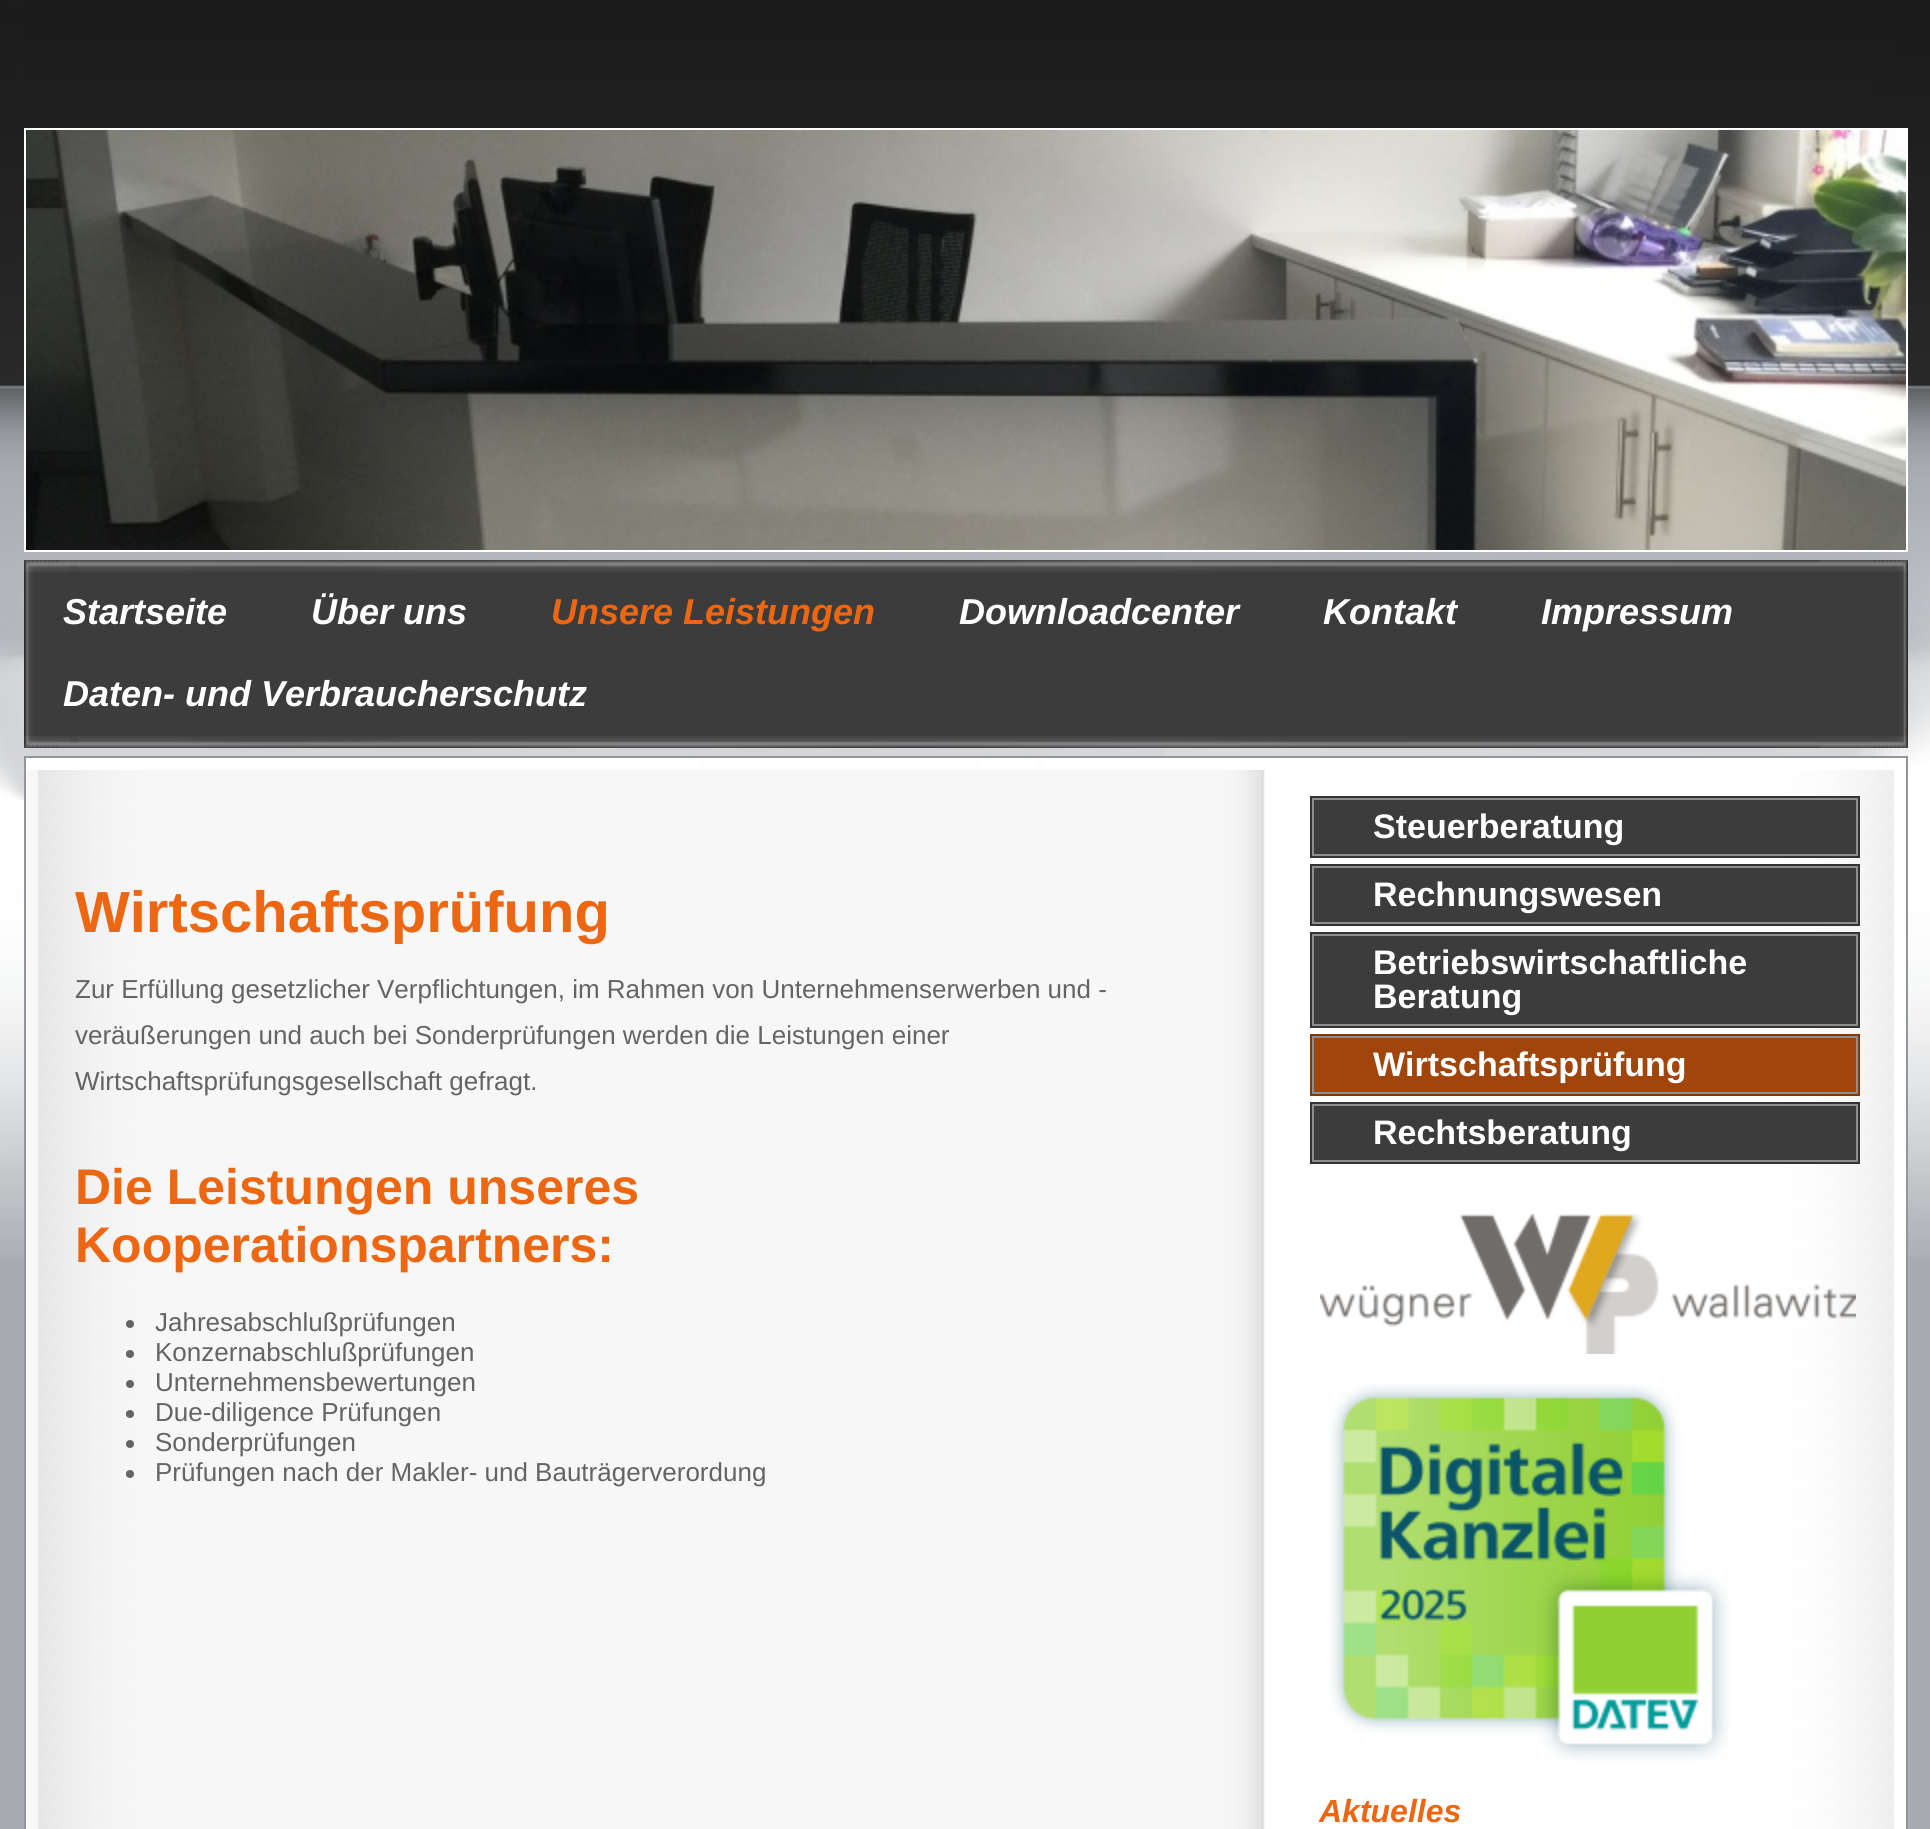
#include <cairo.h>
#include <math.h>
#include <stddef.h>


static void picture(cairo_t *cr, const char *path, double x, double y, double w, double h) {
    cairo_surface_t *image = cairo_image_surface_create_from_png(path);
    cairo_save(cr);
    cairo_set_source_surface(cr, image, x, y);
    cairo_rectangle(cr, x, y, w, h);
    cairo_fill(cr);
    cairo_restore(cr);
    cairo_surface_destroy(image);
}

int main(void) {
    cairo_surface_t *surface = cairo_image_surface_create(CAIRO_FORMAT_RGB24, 1930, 1829);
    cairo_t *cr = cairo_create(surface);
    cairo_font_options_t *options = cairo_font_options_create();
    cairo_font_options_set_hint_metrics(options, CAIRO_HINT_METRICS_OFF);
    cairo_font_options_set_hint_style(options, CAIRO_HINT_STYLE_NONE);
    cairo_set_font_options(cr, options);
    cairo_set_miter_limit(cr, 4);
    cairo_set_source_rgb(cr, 0.659, 0.675, 0.694);
    cairo_paint(cr);
    picture(cr, "img1.png", 0, 0, 1930, 1257);
    cairo_rectangle(cr, 25, 129, 1882, 422);
    cairo_set_source_rgb(cr, 1, 1, 1);
    cairo_stroke(cr);
    picture(cr, "img2.png", 26, 130, 1880, 420);
    picture(cr, "img3.png", 24, 560, 1884, 12);
    picture(cr, "img4.png", 24, 572, 1884, 164);
    cairo_select_font_face(cr, "Liberation Sans", CAIRO_FONT_SLANT_ITALIC, CAIRO_FONT_WEIGHT_BOLD);
    cairo_set_font_size(cr, 36);
    cairo_move_to(cr, 63, 624);
    cairo_show_text(cr, "Startseite");
    cairo_move_to(cr, 311, 624);
    cairo_show_text(cr, "Über uns");
    cairo_set_source_rgb(cr, 0.929, 0.404, 0.071);
    cairo_move_to(cr, 551, 624);
    cairo_show_text(cr, "Unsere Leistungen");
    cairo_set_source_rgb(cr, 1, 1, 1);
    cairo_move_to(cr, 959, 624);
    cairo_show_text(cr, "Downloadcenter");
    cairo_move_to(cr, 1323, 624);
    cairo_show_text(cr, "Kontakt");
    cairo_move_to(cr, 1541, 624);
    cairo_show_text(cr, "Impressum");
    cairo_move_to(cr, 63, 706);
    cairo_show_text(cr, "Daten- und Verbraucherschutz");
    picture(cr, "img5.png", 24, 736, 1884, 12);
    picture(cr, "img6.png", 26, 770, 1880, 1059);
    cairo_set_source_rgb(cr, 0.573, 0.584, 0.6);
    cairo_rectangle(cr, 24, 756, 1884, 2);
    cairo_fill(cr);
    cairo_rectangle(cr, 1906, 756, 2, 1073);
    cairo_fill(cr);
    cairo_rectangle(cr, 24, 756, 2, 1073);
    cairo_fill(cr);
    cairo_select_font_face(cr, "Liberation Sans", CAIRO_FONT_SLANT_NORMAL, CAIRO_FONT_WEIGHT_BOLD);
    cairo_set_font_size(cr, 58);
    cairo_set_source_rgb(cr, 0.929, 0.404, 0.071);
    cairo_move_to(cr, 75, 932);
    cairo_show_text(cr, "Wirtschaftsprüfung");
    cairo_select_font_face(cr, "Liberation Sans", CAIRO_FONT_SLANT_NORMAL, CAIRO_FONT_WEIGHT_NORMAL);
    cairo_set_font_size(cr, 26);
    cairo_set_source_rgb(cr, 0.392, 0.392, 0.392);
    cairo_move_to(cr, 75, 998);
    cairo_show_text(cr, "Zur Erfüllung gesetzlicher Verpflichtungen, im Rahmen von Unternehmenserwerben und -");
    cairo_move_to(cr, 75, 1044);
    cairo_show_text(cr, "veräußerungen und auch bei Sonderprüfungen werden die Leistungen einer");
    cairo_move_to(cr, 75, 1090);
    cairo_show_text(cr, "Wirtschaftsprüfungsgesellschaft gefragt.");
    cairo_select_font_face(cr, "Liberation Sans", CAIRO_FONT_SLANT_NORMAL, CAIRO_FONT_WEIGHT_BOLD);
    cairo_set_font_size(cr, 50);
    cairo_set_source_rgb(cr, 0.929, 0.404, 0.071);
    cairo_move_to(cr, 75, 1204);
    cairo_show_text(cr, "Die Leistungen unseres");
    cairo_move_to(cr, 75, 1262);
    cairo_show_text(cr, "Kooperationspartners:");
    cairo_set_source_rgb(cr, 0.392, 0.392, 0.392);
    cairo_new_path(cr);
    cairo_arc(cr, 130, 1324, 4, 0, 2 * M_PI);
    cairo_fill(cr);
    cairo_select_font_face(cr, "Liberation Sans", CAIRO_FONT_SLANT_NORMAL, CAIRO_FONT_WEIGHT_NORMAL);
    cairo_set_font_size(cr, 26);
    cairo_move_to(cr, 155, 1331);
    cairo_show_text(cr, "Jahresabschlußprüfungen");
    cairo_new_path(cr);
    cairo_arc(cr, 130, 1354, 4, 0, 2 * M_PI);
    cairo_fill(cr);
    cairo_move_to(cr, 155, 1361);
    cairo_show_text(cr, "Konzernabschlußprüfungen");
    cairo_new_path(cr);
    cairo_arc(cr, 130, 1384, 4, 0, 2 * M_PI);
    cairo_fill(cr);
    cairo_move_to(cr, 155, 1391);
    cairo_show_text(cr, "Unternehmensbewertungen");
    cairo_new_path(cr);
    cairo_arc(cr, 130, 1414, 4, 0, 2 * M_PI);
    cairo_fill(cr);
    cairo_move_to(cr, 155, 1421);
    cairo_show_text(cr, "Due-diligence Prüfungen");
    cairo_new_path(cr);
    cairo_arc(cr, 130, 1444, 4, 0, 2 * M_PI);
    cairo_fill(cr);
    cairo_move_to(cr, 155, 1451);
    cairo_show_text(cr, "Sonderprüfungen");
    cairo_new_path(cr);
    cairo_arc(cr, 130, 1474, 4, 0, 2 * M_PI);
    cairo_fill(cr);
    cairo_move_to(cr, 155, 1481);
    cairo_show_text(cr, "Prüfungen nach der Makler- und Bauträgerverordung");
    cairo_set_source_rgb(cr, 1, 1, 1);
    cairo_rectangle(cr, 26, 758, 1880, 12);
    cairo_fill(cr);
    cairo_set_source_rgb(cr, 0.235, 0.235, 0.235);
    cairo_rectangle(cr, 1314, 800, 542, 54);
    cairo_fill(cr);
    cairo_rectangle(cr, 1311, 797, 548, 60);
    cairo_set_source_rgb(cr, 0.2, 0.2, 0.2);
    cairo_stroke(cr);
    cairo_rectangle(cr, 1313, 799, 544, 56);
    cairo_set_source_rgb(cr, 0.557, 0.557, 0.557);
    cairo_stroke(cr);
    cairo_select_font_face(cr, "Liberation Sans", CAIRO_FONT_SLANT_NORMAL, CAIRO_FONT_WEIGHT_BOLD);
    cairo_set_font_size(cr, 34);
    cairo_set_source_rgb(cr, 1, 1, 1);
    cairo_move_to(cr, 1373, 838);
    cairo_show_text(cr, "Steuerberatung");
    cairo_set_source_rgb(cr, 0.235, 0.235, 0.235);
    cairo_rectangle(cr, 1314, 868, 542, 54);
    cairo_fill(cr);
    cairo_rectangle(cr, 1311, 865, 548, 60);
    cairo_set_source_rgb(cr, 0.2, 0.2, 0.2);
    cairo_stroke(cr);
    cairo_rectangle(cr, 1313, 867, 544, 56);
    cairo_set_source_rgb(cr, 0.557, 0.557, 0.557);
    cairo_stroke(cr);
    cairo_set_source_rgb(cr, 1, 1, 1);
    cairo_move_to(cr, 1373, 906);
    cairo_show_text(cr, "Rechnungswesen");
    cairo_set_source_rgb(cr, 0.235, 0.235, 0.235);
    cairo_rectangle(cr, 1314, 936, 542, 88);
    cairo_fill(cr);
    cairo_rectangle(cr, 1311, 933, 548, 94);
    cairo_set_source_rgb(cr, 0.2, 0.2, 0.2);
    cairo_stroke(cr);
    cairo_rectangle(cr, 1313, 935, 544, 90);
    cairo_set_source_rgb(cr, 0.557, 0.557, 0.557);
    cairo_stroke(cr);
    cairo_set_source_rgb(cr, 1, 1, 1);
    cairo_move_to(cr, 1373, 974);
    cairo_show_text(cr, "Betriebswirtschaftliche");
    cairo_move_to(cr, 1373, 1008);
    cairo_show_text(cr, "Beratung");
    cairo_set_source_rgb(cr, 0.627, 0.275, 0.051);
    cairo_rectangle(cr, 1314, 1038, 542, 54);
    cairo_fill(cr);
    cairo_rectangle(cr, 1311, 1035, 548, 60);
    cairo_set_source_rgb(cr, 0.51, 0.224, 0.039);
    cairo_stroke(cr);
    cairo_rectangle(cr, 1313, 1037, 544, 56);
    cairo_set_source_rgb(cr, 0.557, 0.557, 0.557);
    cairo_stroke(cr);
    cairo_set_source_rgb(cr, 1, 1, 1);
    cairo_move_to(cr, 1373, 1076);
    cairo_show_text(cr, "Wirtschaftsprüfung");
    cairo_set_source_rgb(cr, 0.235, 0.235, 0.235);
    cairo_rectangle(cr, 1314, 1106, 542, 54);
    cairo_fill(cr);
    cairo_rectangle(cr, 1311, 1103, 548, 60);
    cairo_set_source_rgb(cr, 0.2, 0.2, 0.2);
    cairo_stroke(cr);
    cairo_rectangle(cr, 1313, 1105, 544, 56);
    cairo_set_source_rgb(cr, 0.557, 0.557, 0.557);
    cairo_stroke(cr);
    cairo_set_source_rgb(cr, 1, 1, 1);
    cairo_move_to(cr, 1373, 1144);
    cairo_show_text(cr, "Rechtsberatung");
    picture(cr, "img7.png", 1320, 1214, 536, 140);
    picture(cr, "img8.png", 1330, 1384, 399, 377);
    cairo_select_font_face(cr, "Liberation Sans", CAIRO_FONT_SLANT_ITALIC, CAIRO_FONT_WEIGHT_BOLD);
    cairo_set_font_size(cr, 32);
    cairo_set_source_rgb(cr, 0.929, 0.404, 0.071);
    cairo_move_to(cr, 1319, 1822);
    cairo_show_text(cr, "Aktuelles");
    cairo_surface_write_to_png(surface, "page.png");
    cairo_font_options_destroy(options);
    cairo_destroy(cr);
    cairo_surface_destroy(surface);
    return 0;
}
